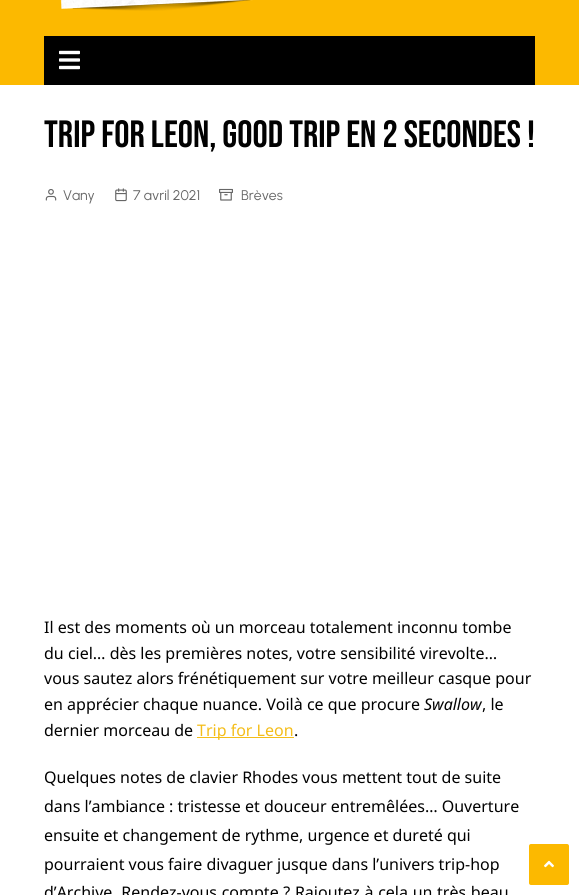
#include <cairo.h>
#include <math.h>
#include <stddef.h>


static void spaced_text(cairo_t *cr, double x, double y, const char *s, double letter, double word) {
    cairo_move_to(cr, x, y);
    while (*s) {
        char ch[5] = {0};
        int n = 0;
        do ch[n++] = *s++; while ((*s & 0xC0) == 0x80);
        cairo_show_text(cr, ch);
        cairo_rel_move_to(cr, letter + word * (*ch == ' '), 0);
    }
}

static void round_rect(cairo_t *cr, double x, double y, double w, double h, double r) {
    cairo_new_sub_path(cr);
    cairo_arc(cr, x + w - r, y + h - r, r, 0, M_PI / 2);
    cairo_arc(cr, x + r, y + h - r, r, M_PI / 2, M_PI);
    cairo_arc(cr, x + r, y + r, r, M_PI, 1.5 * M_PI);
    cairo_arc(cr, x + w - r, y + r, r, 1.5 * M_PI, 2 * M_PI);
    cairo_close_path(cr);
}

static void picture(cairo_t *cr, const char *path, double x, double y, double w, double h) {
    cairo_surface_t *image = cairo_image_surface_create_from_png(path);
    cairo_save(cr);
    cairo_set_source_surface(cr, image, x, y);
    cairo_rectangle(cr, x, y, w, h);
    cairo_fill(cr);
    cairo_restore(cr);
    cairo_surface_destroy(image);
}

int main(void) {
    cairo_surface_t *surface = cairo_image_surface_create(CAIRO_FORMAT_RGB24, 579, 895);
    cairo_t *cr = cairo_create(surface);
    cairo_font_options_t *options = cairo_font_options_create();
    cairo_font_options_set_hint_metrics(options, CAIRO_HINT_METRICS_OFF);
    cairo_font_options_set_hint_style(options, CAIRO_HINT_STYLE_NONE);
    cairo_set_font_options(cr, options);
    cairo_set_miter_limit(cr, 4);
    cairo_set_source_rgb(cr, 1, 1, 1);
    cairo_paint(cr);
    cairo_set_source_rgb(cr, 0.988, 0.725, 0);
    cairo_rectangle(cr, 0, 0, 579, 85);
    cairo_fill(cr);
    picture(cr, "img1.png", 60, 0, 193, 11);
    cairo_set_source_rgb(cr, 0, 0, 0);
    cairo_rectangle(cr, 44, 36, 491, 49);
    cairo_fill(cr);
    picture(cr, "img2.png", 59, 50, 21, 20);
    cairo_select_font_face(cr, "Bebas Neue", CAIRO_FONT_SLANT_NORMAL, CAIRO_FONT_WEIGHT_NORMAL);
    cairo_set_font_size(cr, 38);
    cairo_set_source_rgb(cr, 0.004, 0.004, 0.004);
    cairo_move_to(cr, 44, 147);
    cairo_show_text(cr, "Trip for Leon, good trip en 2 secondes !");
    picture(cr, "img3.png", 45, 189, 12, 12);
    cairo_select_font_face(cr, "Urbanist", CAIRO_FONT_SLANT_NORMAL, CAIRO_FONT_WEIGHT_NORMAL);
    cairo_set_font_size(cr, 14);
    cairo_set_source_rgb(cr, 0.4, 0.4, 0.4);
    cairo_move_to(cr, 63, 200);
    cairo_show_text(cr, "Vany");
    picture(cr, "img4.png", 115, 188, 12, 14);
    cairo_move_to(cr, 133, 200);
    cairo_show_text(cr, "7 avril 2021");
    picture(cr, "img5.png", 219, 188, 14, 13);
    cairo_move_to(cr, 241, 200);
    cairo_show_text(cr, "Brèves");
    cairo_select_font_face(cr, "Noto Sans", CAIRO_FONT_SLANT_NORMAL, CAIRO_FONT_WEIGHT_NORMAL);
    cairo_set_font_size(cr, 16);
    cairo_set_source_rgb(cr, 0.004, 0.004, 0.004);
    cairo_move_to(cr, 44, 633);
    cairo_show_text(cr, "Il est des moments où un morceau totalement inconnu tombe");
    cairo_move_to(cr, 44, 659);
    cairo_show_text(cr, "du ciel… dès les premières notes, votre sensibilité virevolte…");
    cairo_move_to(cr, 44, 684);
    cairo_show_text(cr, "vous sautez alors frénétiquement sur votre meilleur casque pour");
    cairo_move_to(cr, 44, 710);
    cairo_show_text(cr, "en apprécier chaque nuance. Voilà ce que procure");
    cairo_select_font_face(cr, "Noto Sans", CAIRO_FONT_SLANT_ITALIC, CAIRO_FONT_WEIGHT_NORMAL);
    cairo_move_to(cr, 424, 710);
    cairo_show_text(cr, "Swallow");
    cairo_select_font_face(cr, "Noto Sans", CAIRO_FONT_SLANT_NORMAL, CAIRO_FONT_WEIGHT_NORMAL);
    cairo_move_to(cr, 482, 710);
    cairo_show_text(cr, ", le");
    cairo_move_to(cr, 44, 736);
    cairo_show_text(cr, "dernier morceau de");
    cairo_set_source_rgb(cr, 0.957, 0.741, 0.098);
    cairo_rectangle(cr, 197, 737, 97, 1);
    cairo_fill(cr);
    cairo_move_to(cr, 197, 736);
    cairo_show_text(cr, "Trip for Leon");
    cairo_set_source_rgb(cr, 0.004, 0.004, 0.004);
    cairo_move_to(cr, 294, 736);
    cairo_show_text(cr, ".");
    cairo_move_to(cr, 44, 783);
    cairo_show_text(cr, "Quelques notes de clavier Rhodes vous mettent tout de suite");
    cairo_move_to(cr, 44, 812);
    cairo_show_text(cr, "dans l’ambiance : tristesse et douceur entremêlées… Ouverture");
    cairo_move_to(cr, 44, 841);
    cairo_show_text(cr, "ensuite et changement de rythme, urgence et dureté qui");
    cairo_move_to(cr, 44, 870);
    cairo_show_text(cr, "pourraient vous faire divaguer jusque dans l’univers trip-hop");
    spaced_text(cr, 44, 898, "d’Archive. Rendez-vous compte ? Rajoutez à cela un très beau", 0, 0.5);
    cairo_set_source_rgb(cr, 0.988, 0.725, 0);
    round_rect(cr, 529, 844, 40, 41, 2);
    cairo_fill(cr);
    picture(cr, "img6.png", 544, 860, 10, 8);
    cairo_surface_write_to_png(surface, "page.png");
    cairo_font_options_destroy(options);
    cairo_destroy(cr);
    cairo_surface_destroy(surface);
    return 0;
}
